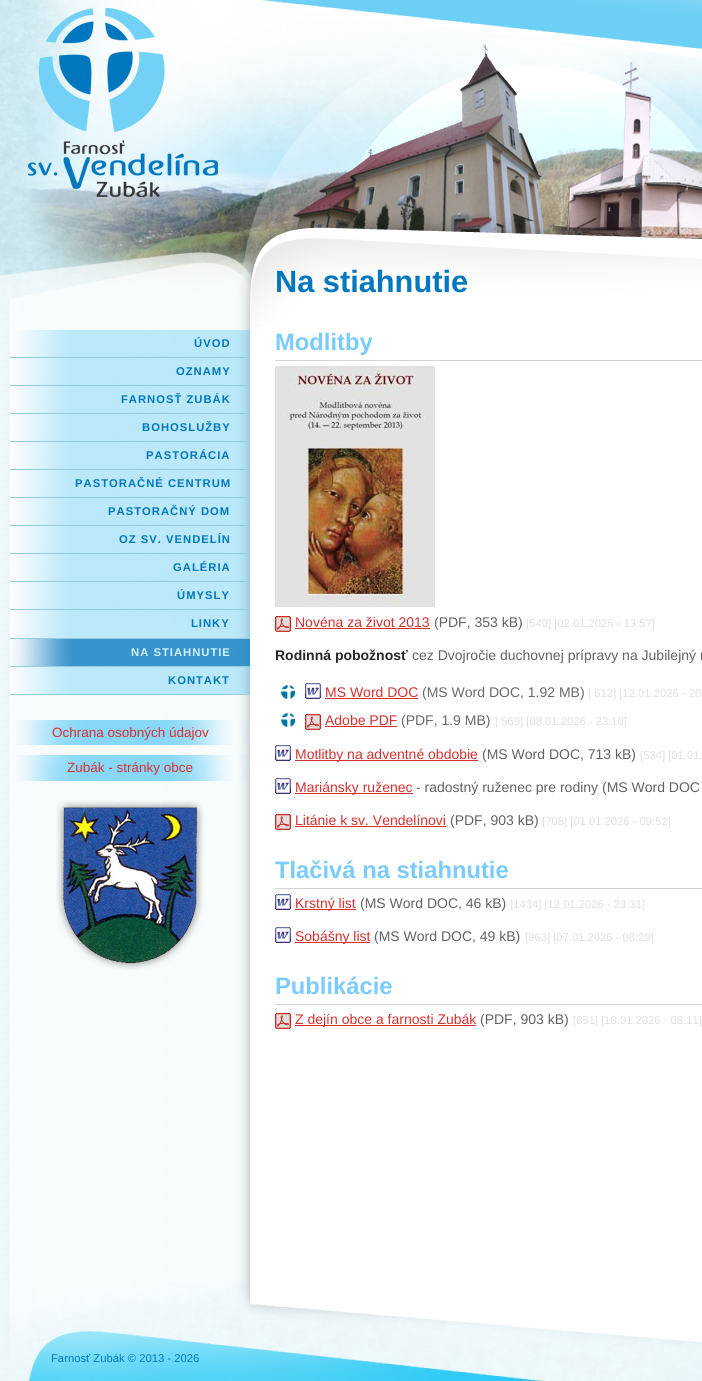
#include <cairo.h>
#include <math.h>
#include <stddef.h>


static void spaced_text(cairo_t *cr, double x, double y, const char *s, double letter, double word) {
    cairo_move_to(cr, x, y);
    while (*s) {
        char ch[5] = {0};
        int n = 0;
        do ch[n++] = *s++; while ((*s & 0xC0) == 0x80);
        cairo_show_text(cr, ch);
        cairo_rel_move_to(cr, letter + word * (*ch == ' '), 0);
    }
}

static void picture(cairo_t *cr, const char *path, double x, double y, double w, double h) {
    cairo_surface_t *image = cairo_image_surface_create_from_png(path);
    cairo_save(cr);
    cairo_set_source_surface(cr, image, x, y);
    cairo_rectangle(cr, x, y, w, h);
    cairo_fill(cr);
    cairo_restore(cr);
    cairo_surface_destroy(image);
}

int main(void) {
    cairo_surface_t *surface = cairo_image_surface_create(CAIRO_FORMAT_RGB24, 702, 1381);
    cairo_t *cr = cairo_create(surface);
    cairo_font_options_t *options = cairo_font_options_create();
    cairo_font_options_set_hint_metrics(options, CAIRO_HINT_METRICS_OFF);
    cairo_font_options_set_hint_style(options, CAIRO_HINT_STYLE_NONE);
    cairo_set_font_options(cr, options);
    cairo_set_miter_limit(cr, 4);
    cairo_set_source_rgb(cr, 1, 1, 1);
    cairo_paint(cr);
    picture(cr, "img1.png", 0, 307, 702, 1074);
    picture(cr, "img2.png", 0, 0, 702, 220);
    picture(cr, "img3.png", 0, 220, 250, 87);
    cairo_set_source_rgb(cr, 0.584, 0.796, 0.882);
    cairo_rectangle(cr, 10, 357, 240, 1);
    cairo_fill(cr);
    picture(cr, "img4.png", 14, 330, 236, 27);
    cairo_select_font_face(cr, "Liberation Sans", CAIRO_FONT_SLANT_NORMAL, CAIRO_FONT_WEIGHT_BOLD);
    cairo_set_font_size(cr, 11.25);
    cairo_set_source_rgb(cr, 0.004, 0.467, 0.749);
    spaced_text(cr, 194, 347, "ÚVOD", 1, 0);
    cairo_set_source_rgb(cr, 0.584, 0.796, 0.882);
    cairo_rectangle(cr, 10, 385, 240, 1);
    cairo_fill(cr);
    picture(cr, "img4.png", 14, 358, 236, 27);
    cairo_set_source_rgb(cr, 0.004, 0.467, 0.749);
    spaced_text(cr, 176, 375, "OZNAMY", 1, 0);
    cairo_set_source_rgb(cr, 0.584, 0.796, 0.882);
    cairo_rectangle(cr, 10, 413, 240, 1);
    cairo_fill(cr);
    picture(cr, "img5.png", 16, 386, 234, 27);
    cairo_set_source_rgb(cr, 0.004, 0.467, 0.749);
    spaced_text(cr, 121, 403, "FARNOSŤ ZUBÁK", 1, 0);
    cairo_set_source_rgb(cr, 0.584, 0.796, 0.882);
    cairo_rectangle(cr, 10, 441, 240, 1);
    cairo_fill(cr);
    picture(cr, "img4.png", 14, 414, 236, 27);
    cairo_set_source_rgb(cr, 0.004, 0.467, 0.749);
    spaced_text(cr, 142, 431, "BOHOSLUŽBY", 1, 0);
    cairo_set_source_rgb(cr, 0.584, 0.796, 0.882);
    cairo_rectangle(cr, 10, 469, 240, 1);
    cairo_fill(cr);
    picture(cr, "img4.png", 14, 442, 236, 27);
    cairo_set_source_rgb(cr, 0.004, 0.467, 0.749);
    spaced_text(cr, 146, 459, "PASTORÁCIA", 1, 0);
    cairo_set_source_rgb(cr, 0.584, 0.796, 0.882);
    cairo_rectangle(cr, 10, 497, 240, 1);
    cairo_fill(cr);
    picture(cr, "img5.png", 16, 470, 234, 27);
    cairo_set_source_rgb(cr, 0.004, 0.467, 0.749);
    spaced_text(cr, 75, 487, "PASTORAČNÉ CENTRUM", 1, 0);
    cairo_set_source_rgb(cr, 0.584, 0.796, 0.882);
    cairo_rectangle(cr, 10, 525, 240, 1);
    cairo_fill(cr);
    picture(cr, "img4.png", 14, 498, 236, 27);
    cairo_set_source_rgb(cr, 0.004, 0.467, 0.749);
    spaced_text(cr, 108, 515, "PASTORAČNÝ DOM", 1, 0);
    cairo_set_source_rgb(cr, 0.584, 0.796, 0.882);
    cairo_rectangle(cr, 10, 553, 240, 1);
    cairo_fill(cr);
    picture(cr, "img4.png", 14, 526, 236, 27);
    cairo_set_source_rgb(cr, 0.004, 0.467, 0.749);
    spaced_text(cr, 119, 543, "OZ SV. VENDELÍN", 1, 0);
    cairo_set_source_rgb(cr, 0.584, 0.796, 0.882);
    cairo_rectangle(cr, 10, 581, 240, 1);
    cairo_fill(cr);
    picture(cr, "img5.png", 16, 554, 234, 27);
    cairo_set_source_rgb(cr, 0.004, 0.467, 0.749);
    spaced_text(cr, 173, 571, "GALÉRIA", 1, 0);
    cairo_set_source_rgb(cr, 0.584, 0.796, 0.882);
    cairo_rectangle(cr, 10, 609, 240, 1);
    cairo_fill(cr);
    picture(cr, "img4.png", 14, 582, 236, 27);
    cairo_set_source_rgb(cr, 0.004, 0.467, 0.749);
    spaced_text(cr, 177, 599, "ÚMYSLY", 1, 0);
    cairo_set_source_rgb(cr, 0.584, 0.796, 0.882);
    cairo_rectangle(cr, 10, 638, 240, 1);
    cairo_fill(cr);
    picture(cr, "img6.png", 14, 610, 236, 28);
    cairo_set_source_rgb(cr, 0.004, 0.467, 0.749);
    spaced_text(cr, 191, 627, "LINKY", 1, 0);
    cairo_set_source_rgb(cr, 0.584, 0.796, 0.882);
    cairo_rectangle(cr, 10, 666, 240, 1);
    cairo_fill(cr);
    picture(cr, "img7.png", 13, 639, 237, 27);
    cairo_set_source_rgb(cr, 0.82, 0.949, 0.988);
    spaced_text(cr, 131, 656, "NA STIAHNUTIE", 1, 0);
    cairo_set_source_rgb(cr, 0.584, 0.796, 0.882);
    cairo_rectangle(cr, 10, 694, 240, 1);
    cairo_fill(cr);
    picture(cr, "img4.png", 14, 667, 236, 27);
    cairo_set_source_rgb(cr, 0.004, 0.467, 0.749);
    spaced_text(cr, 168, 684, "KONTAKT", 1, 0);
    picture(cr, "img8.png", 16, 720, 234, 25);
    cairo_select_font_face(cr, "Liberation Sans", CAIRO_FONT_SLANT_NORMAL, CAIRO_FONT_WEIGHT_NORMAL);
    cairo_set_font_size(cr, 13.5);
    cairo_set_source_rgb(cr, 0.843, 0.188, 0.188);
    cairo_move_to(cr, 52, 737);
    cairo_show_text(cr, "Ochrana osobných údajov");
    picture(cr, "img9.png", 16, 755, 234, 26);
    cairo_move_to(cr, 67, 772);
    cairo_show_text(cr, "Zubák - stránky obce");
    picture(cr, "img10.png", 56, 800, 148, 170);
    picture(cr, "img11.png", 250, 220, 452, 107);
    cairo_select_font_face(cr, "Liberation Sans", CAIRO_FONT_SLANT_NORMAL, CAIRO_FONT_WEIGHT_BOLD);
    cairo_set_font_size(cr, 30.75);
    cairo_set_source_rgb(cr, 0.004, 0.467, 0.749);
    cairo_move_to(cr, 275, 292);
    cairo_show_text(cr, "Na stiahnutie");
    cairo_set_source_rgb(cr, 0.835, 0.835, 0.835);
    cairo_rectangle(cr, 275, 360, 427, 1);
    cairo_fill(cr);
    cairo_set_font_size(cr, 23.75);
    cairo_set_source_rgb(cr, 0.478, 0.796, 0.996);
    cairo_move_to(cr, 275, 350);
    cairo_show_text(cr, "Modlitby");
    picture(cr, "img12.png", 275, 366, 160, 241);
    picture(cr, "img13.png", 275, 616, 16, 16);
    cairo_select_font_face(cr, "Liberation Sans", CAIRO_FONT_SLANT_NORMAL, CAIRO_FONT_WEIGHT_NORMAL);
    cairo_set_font_size(cr, 14);
    cairo_set_source_rgb(cr, 0.843, 0.188, 0.188);
    cairo_move_to(cr, 295, 627);
    cairo_show_text(cr, "Novéna za život 2013");
    cairo_rectangle(cr, 295, 628, 135, 1);
    cairo_fill(cr);
    cairo_set_source_rgb(cr, 0.384, 0.384, 0.384);
    cairo_move_to(cr, 434, 627);
    cairo_show_text(cr, "(PDF, 353 kB)");
    cairo_set_font_size(cr, 11.25);
    cairo_set_source_rgb(cr, 0.875, 0.875, 0.875);
    cairo_move_to(cr, 526, 627);
    cairo_show_text(cr, "[540] [02.01.2026 - 13:57]");
    cairo_select_font_face(cr, "Liberation Sans", CAIRO_FONT_SLANT_NORMAL, CAIRO_FONT_WEIGHT_BOLD);
    cairo_set_font_size(cr, 14);
    cairo_set_source_rgb(cr, 0.153, 0.153, 0.153);
    cairo_move_to(cr, 275, 660);
    cairo_show_text(cr, "Rodinná pobožnosť");
    cairo_select_font_face(cr, "Liberation Sans", CAIRO_FONT_SLANT_NORMAL, CAIRO_FONT_WEIGHT_NORMAL);
    cairo_set_source_rgb(cr, 0.384, 0.384, 0.384);
    cairo_move_to(cr, 412, 660);
    cairo_show_text(cr, "cez Dvojročie duchovnej prípravy na Jubilejný r");
    picture(cr, "img14.png", 281, 685, 14, 14);
    picture(cr, "img15.png", 305, 683, 16, 16);
    cairo_set_source_rgb(cr, 0.843, 0.188, 0.188);
    cairo_move_to(cr, 325, 697);
    cairo_show_text(cr, "MS Word DOC");
    cairo_rectangle(cr, 325, 698, 93, 1);
    cairo_fill(cr);
    cairo_set_source_rgb(cr, 0.412, 0.412, 0.412);
    cairo_move_to(cr, 422, 697);
    cairo_show_text(cr, "(MS Word DOC, 1.92 MB)");
    cairo_set_font_size(cr, 11.25);
    cairo_set_source_rgb(cr, 0.875, 0.875, 0.875);
    cairo_move_to(cr, 588, 697);
    cairo_show_text(cr, "[ 512] [12.01.2026 - 20");
    picture(cr, "img14.png", 281, 713, 14, 14);
    picture(cr, "img13.png", 305, 714, 16, 16);
    cairo_set_font_size(cr, 14);
    cairo_set_source_rgb(cr, 0.843, 0.188, 0.188);
    cairo_move_to(cr, 325, 725);
    cairo_show_text(cr, "Adobe PDF");
    cairo_rectangle(cr, 325, 726, 72, 1);
    cairo_fill(cr);
    cairo_set_source_rgb(cr, 0.412, 0.412, 0.412);
    cairo_move_to(cr, 401, 725);
    cairo_show_text(cr, "(PDF, 1.9 MB)");
    cairo_set_font_size(cr, 11.25);
    cairo_set_source_rgb(cr, 0.875, 0.875, 0.875);
    cairo_move_to(cr, 495, 725);
    cairo_show_text(cr, "[ 569] [08.01.2026 - 23:10]");
    picture(cr, "img15.png", 275, 745, 16, 16);
    cairo_set_source_rgb(cr, 0.843, 0.188, 0.188);
    cairo_rectangle(cr, 295, 760, 183, 1);
    cairo_fill(cr);
    cairo_set_font_size(cr, 14);
    cairo_move_to(cr, 295, 759);
    cairo_show_text(cr, "Motlitby na adventné obdobie");
    cairo_set_source_rgb(cr, 0.384, 0.384, 0.384);
    cairo_move_to(cr, 482, 759);
    cairo_show_text(cr, "(MS Word DOC, 713 kB)");
    cairo_set_font_size(cr, 11.25);
    cairo_set_source_rgb(cr, 0.875, 0.875, 0.875);
    cairo_move_to(cr, 640, 759);
    cairo_show_text(cr, "[534] [01.01.");
    picture(cr, "img15.png", 275, 778, 16, 16);
    cairo_set_source_rgb(cr, 0.843, 0.188, 0.188);
    cairo_rectangle(cr, 295, 793, 118, 1);
    cairo_fill(cr);
    cairo_set_font_size(cr, 14);
    cairo_move_to(cr, 295, 792);
    cairo_show_text(cr, "Mariánsky ruženec");
    cairo_set_source_rgb(cr, 0.384, 0.384, 0.384);
    cairo_move_to(cr, 416, 792);
    cairo_show_text(cr, "- radostný ruženec pre rodiny (MS Word DOC");
    picture(cr, "img13.png", 275, 814, 16, 16);
    cairo_set_source_rgb(cr, 0.843, 0.188, 0.188);
    cairo_move_to(cr, 295, 825);
    cairo_show_text(cr, "Litánie k sv. Vendelínovi");
    cairo_rectangle(cr, 295, 826, 151, 1);
    cairo_fill(cr);
    cairo_set_source_rgb(cr, 0.384, 0.384, 0.384);
    cairo_move_to(cr, 450, 825);
    cairo_show_text(cr, "(PDF, 903 kB)");
    cairo_set_font_size(cr, 11.25);
    cairo_set_source_rgb(cr, 0.875, 0.875, 0.875);
    cairo_move_to(cr, 542, 825);
    cairo_show_text(cr, "[708] [01.01.2026 - 09:52]");
    cairo_set_source_rgb(cr, 0.835, 0.835, 0.835);
    cairo_rectangle(cr, 275, 888, 427, 1);
    cairo_fill(cr);
    cairo_select_font_face(cr, "Liberation Sans", CAIRO_FONT_SLANT_NORMAL, CAIRO_FONT_WEIGHT_BOLD);
    cairo_set_font_size(cr, 23.75);
    cairo_set_source_rgb(cr, 0.478, 0.796, 0.996);
    cairo_move_to(cr, 275, 878);
    cairo_show_text(cr, "Tlačivá na stiahnutie");
    picture(cr, "img15.png", 275, 894, 16, 16);
    cairo_set_source_rgb(cr, 0.843, 0.188, 0.188);
    cairo_rectangle(cr, 295, 909, 61, 1);
    cairo_fill(cr);
    cairo_select_font_face(cr, "Liberation Sans", CAIRO_FONT_SLANT_NORMAL, CAIRO_FONT_WEIGHT_NORMAL);
    cairo_set_font_size(cr, 14);
    cairo_move_to(cr, 295, 908);
    cairo_show_text(cr, "Krstný list");
    cairo_set_source_rgb(cr, 0.384, 0.384, 0.384);
    cairo_move_to(cr, 360, 908);
    cairo_show_text(cr, "(MS Word DOC, 46 kB)");
    cairo_set_font_size(cr, 11.25);
    cairo_set_source_rgb(cr, 0.875, 0.875, 0.875);
    cairo_move_to(cr, 510, 908);
    cairo_show_text(cr, "[1434] [12.01.2026 - 23:31]");
    picture(cr, "img15.png", 275, 927, 16, 16);
    cairo_set_source_rgb(cr, 0.843, 0.188, 0.188);
    cairo_rectangle(cr, 295, 942, 75, 1);
    cairo_fill(cr);
    cairo_set_font_size(cr, 14);
    cairo_move_to(cr, 295, 941);
    cairo_show_text(cr, "Sobášny list");
    cairo_set_source_rgb(cr, 0.384, 0.384, 0.384);
    cairo_move_to(cr, 374, 941);
    cairo_show_text(cr, "(MS Word DOC, 49 kB)");
    cairo_set_font_size(cr, 11.25);
    cairo_set_source_rgb(cr, 0.875, 0.875, 0.875);
    cairo_move_to(cr, 525, 941);
    cairo_show_text(cr, "[963] [07.01.2026 - 08:29]");
    cairo_set_source_rgb(cr, 0.835, 0.835, 0.835);
    cairo_rectangle(cr, 275, 1004, 427, 1);
    cairo_fill(cr);
    cairo_select_font_face(cr, "Liberation Sans", CAIRO_FONT_SLANT_NORMAL, CAIRO_FONT_WEIGHT_BOLD);
    cairo_set_font_size(cr, 23.75);
    cairo_set_source_rgb(cr, 0.478, 0.796, 0.996);
    cairo_move_to(cr, 275, 994);
    cairo_show_text(cr, "Publikácie");
    picture(cr, "img13.png", 275, 1013, 16, 16);
    cairo_set_source_rgb(cr, 0.843, 0.188, 0.188);
    cairo_rectangle(cr, 295, 1025, 181, 1);
    cairo_fill(cr);
    cairo_select_font_face(cr, "Liberation Sans", CAIRO_FONT_SLANT_NORMAL, CAIRO_FONT_WEIGHT_NORMAL);
    cairo_set_font_size(cr, 14);
    cairo_move_to(cr, 295, 1024);
    cairo_show_text(cr, "Z dejín obce a farnosti Zubák");
    cairo_set_source_rgb(cr, 0.384, 0.384, 0.384);
    cairo_move_to(cr, 480, 1024);
    cairo_show_text(cr, "(PDF, 903 kB)");
    cairo_set_font_size(cr, 11.25);
    cairo_set_source_rgb(cr, 0.875, 0.875, 0.875);
    cairo_move_to(cr, 573, 1024);
    cairo_show_text(cr, "[851] [10.01.2026 - 08:11]");
    picture(cr, "img16.png", 7, 1281, 695, 100);
    cairo_set_source_rgb(cr, 0.004, 0.467, 0.749);
    cairo_move_to(cr, 51, 1362);
    cairo_show_text(cr, "Farnosť Zubák © 2013 - 2026");
    cairo_surface_write_to_png(surface, "page.png");
    cairo_font_options_destroy(options);
    cairo_destroy(cr);
    cairo_surface_destroy(surface);
    return 0;
}
